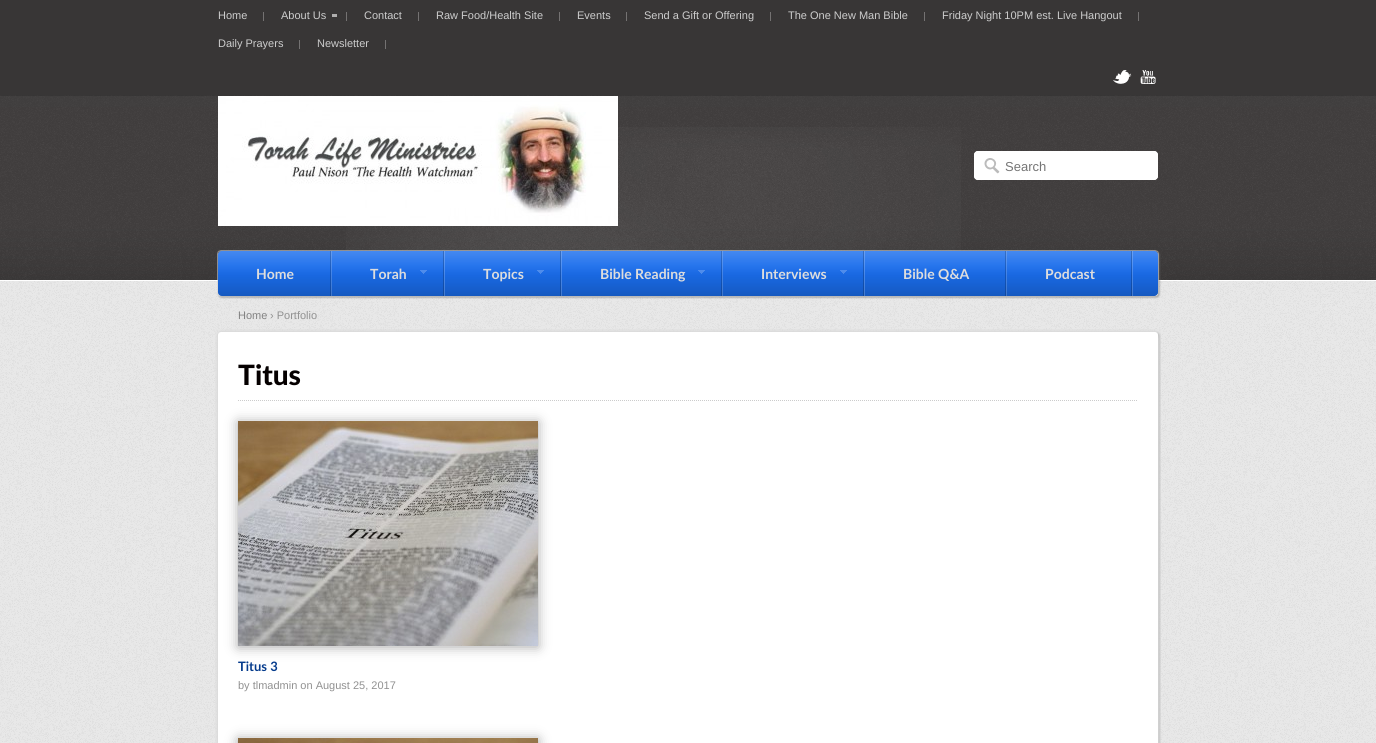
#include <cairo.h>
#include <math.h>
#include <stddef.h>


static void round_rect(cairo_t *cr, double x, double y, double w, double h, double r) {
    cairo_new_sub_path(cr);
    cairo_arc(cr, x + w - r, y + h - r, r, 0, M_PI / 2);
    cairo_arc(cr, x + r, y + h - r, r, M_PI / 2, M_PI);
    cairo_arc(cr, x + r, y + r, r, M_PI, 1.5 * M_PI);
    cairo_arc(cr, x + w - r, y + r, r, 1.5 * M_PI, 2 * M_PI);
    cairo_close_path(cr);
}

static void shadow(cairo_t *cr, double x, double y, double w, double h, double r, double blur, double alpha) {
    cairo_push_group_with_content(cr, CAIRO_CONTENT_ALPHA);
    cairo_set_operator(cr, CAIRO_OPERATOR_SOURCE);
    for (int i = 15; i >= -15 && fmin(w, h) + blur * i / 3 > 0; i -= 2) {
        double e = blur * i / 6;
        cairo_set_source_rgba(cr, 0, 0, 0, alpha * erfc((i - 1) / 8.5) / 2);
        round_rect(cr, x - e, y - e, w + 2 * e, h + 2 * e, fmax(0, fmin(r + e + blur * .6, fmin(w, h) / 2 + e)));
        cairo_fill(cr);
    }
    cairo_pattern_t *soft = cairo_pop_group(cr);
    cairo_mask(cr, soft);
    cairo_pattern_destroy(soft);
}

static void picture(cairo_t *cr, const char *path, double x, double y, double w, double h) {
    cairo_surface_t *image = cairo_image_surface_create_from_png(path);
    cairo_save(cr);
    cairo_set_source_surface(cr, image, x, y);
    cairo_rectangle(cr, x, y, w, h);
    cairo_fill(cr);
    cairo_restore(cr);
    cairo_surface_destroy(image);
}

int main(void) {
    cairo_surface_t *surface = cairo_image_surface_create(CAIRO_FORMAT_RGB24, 1376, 743);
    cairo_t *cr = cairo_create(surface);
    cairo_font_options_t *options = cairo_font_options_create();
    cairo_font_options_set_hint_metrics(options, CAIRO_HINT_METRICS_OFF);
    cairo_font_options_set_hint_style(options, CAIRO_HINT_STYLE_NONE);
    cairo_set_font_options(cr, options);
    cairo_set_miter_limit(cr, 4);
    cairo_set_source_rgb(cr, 1, 1, 1);
    cairo_paint(cr);
    picture(cr, "img1.png", 0, 281, 1376, 462);
    cairo_set_source_rgb(cr, 0.259, 0.247, 0.247);
    cairo_rectangle(cr, 0, 0, 1376, 280);
    cairo_fill(cr);
    picture(cr, "img2.png", 0, 95, 1376, 186);
    cairo_set_source_rgba(cr, 0, 0, 0, 0.15);
    cairo_rectangle(cr, 0, 0, 1376, 96);
    cairo_fill(cr);
    cairo_set_source_rgb(cr, 0.455, 0.447, 0.447);
    cairo_rectangle(cr, 263, 12, 1, 9);
    cairo_fill(cr);
    cairo_select_font_face(cr, "Liberation Sans", CAIRO_FONT_SLANT_NORMAL, CAIRO_FONT_WEIGHT_NORMAL);
    cairo_set_font_size(cr, 11);
    cairo_set_source_rgb(cr, 0.804, 0.804, 0.804);
    cairo_move_to(cr, 218, 19);
    cairo_show_text(cr, "Home");
    cairo_set_source_rgb(cr, 0.455, 0.447, 0.447);
    cairo_rectangle(cr, 346, 12, 1, 9);
    cairo_fill(cr);
    cairo_set_source_rgb(cr, 0.804, 0.804, 0.804);
    cairo_move_to(cr, 281, 19);
    cairo_show_text(cr, "About Us");
    cairo_set_source_rgb(cr, 0.686, 0.682, 0.682);
    cairo_rectangle(cr, 332, 14, 5, 3);
    cairo_fill(cr);
    cairo_set_source_rgb(cr, 0.455, 0.447, 0.447);
    cairo_rectangle(cr, 418, 12, 1, 9);
    cairo_fill(cr);
    cairo_set_source_rgb(cr, 0.804, 0.804, 0.804);
    cairo_move_to(cr, 364, 19);
    cairo_show_text(cr, "Contact");
    cairo_set_source_rgb(cr, 0.455, 0.447, 0.447);
    cairo_rectangle(cr, 559, 12, 1, 9);
    cairo_fill(cr);
    cairo_set_source_rgb(cr, 0.804, 0.804, 0.804);
    cairo_move_to(cr, 436, 19);
    cairo_show_text(cr, "Raw Food/Health Site");
    cairo_set_source_rgb(cr, 0.455, 0.447, 0.447);
    cairo_rectangle(cr, 626, 12, 1, 9);
    cairo_fill(cr);
    cairo_set_source_rgb(cr, 0.804, 0.804, 0.804);
    cairo_move_to(cr, 577, 19);
    cairo_show_text(cr, "Events");
    cairo_set_source_rgb(cr, 0.455, 0.447, 0.447);
    cairo_rectangle(cr, 770, 12, 1, 9);
    cairo_fill(cr);
    cairo_set_source_rgb(cr, 0.804, 0.804, 0.804);
    cairo_move_to(cr, 644, 19);
    cairo_show_text(cr, "Send a Gift or Offering");
    cairo_set_source_rgb(cr, 0.455, 0.447, 0.447);
    cairo_rectangle(cr, 924, 12, 1, 9);
    cairo_fill(cr);
    cairo_set_source_rgb(cr, 0.804, 0.804, 0.804);
    cairo_move_to(cr, 788, 19);
    cairo_show_text(cr, "The One New Man Bible");
    cairo_set_source_rgb(cr, 0.455, 0.447, 0.447);
    cairo_rectangle(cr, 1138, 12, 1, 9);
    cairo_fill(cr);
    cairo_set_source_rgb(cr, 0.804, 0.804, 0.804);
    cairo_move_to(cr, 942, 19);
    cairo_show_text(cr, "Friday Night 10PM est. Live Hangout");
    cairo_set_source_rgb(cr, 0.455, 0.447, 0.447);
    cairo_rectangle(cr, 299, 40, 1, 9);
    cairo_fill(cr);
    cairo_set_source_rgb(cr, 0.804, 0.804, 0.804);
    cairo_move_to(cr, 218, 47);
    cairo_show_text(cr, "Daily Prayers");
    cairo_set_source_rgb(cr, 0.455, 0.447, 0.447);
    cairo_rectangle(cr, 385, 40, 1, 9);
    cairo_fill(cr);
    cairo_set_source_rgb(cr, 0.804, 0.804, 0.804);
    cairo_move_to(cr, 317, 47);
    cairo_show_text(cr, "Newsletter");
    picture(cr, "img3.png", 1113, 70, 19, 14);
    picture(cr, "img4.png", 1140, 70, 16, 14);
    picture(cr, "img5.png", 346, 127, 615, 124);
    picture(cr, "img6.png", 218, 96, 400, 130);
    cairo_set_source_rgb(cr, 1, 1, 1);
    round_rect(cr, 974, 151, 184, 29, 4);
    cairo_fill(cr);
    picture(cr, "img7.png", 984, 158, 16, 16);
    round_rect(cr, 974.5, 151.5, 183, 28, 3.5);
    cairo_set_line_width(cr, 1);
    cairo_stroke(cr);
    cairo_set_font_size(cr, 13);
    cairo_set_source_rgb(cr, 0.459, 0.459, 0.459);
    cairo_move_to(cr, 1005, 171);
    cairo_show_text(cr, "Search");
    picture(cr, "img8.png", 217, 250, 944, 49);
    cairo_set_source_rgb(cr, 0.102, 0.427, 0.922);
    round_rect(cr, 218, 251, 940, 45, 4);
    cairo_fill(cr);
    picture(cr, "img9.png", 218, 251, 940, 45);
    picture(cr, "img10.png", 330, 251, 2, 45);
    cairo_select_font_face(cr, "Lato", CAIRO_FONT_SLANT_NORMAL, CAIRO_FONT_WEIGHT_BOLD);
    cairo_set_font_size(cr, 14);
    cairo_set_source_rgb(cr, 0.867, 0.867, 0.867);
    cairo_move_to(cr, 256, 279);
    cairo_show_text(cr, "Home");
    picture(cr, "img11.png", 443, 251, 2, 45);
    cairo_move_to(cr, 370, 279);
    cairo_show_text(cr, "Torah");
    picture(cr, "img12.png", 420, 270, 7, 4);
    picture(cr, "img11.png", 560, 251, 2, 45);
    cairo_move_to(cr, 483, 279);
    cairo_show_text(cr, "Topics");
    picture(cr, "img12.png", 537, 270, 7, 4);
    picture(cr, "img10.png", 721, 251, 2, 45);
    cairo_move_to(cr, 600, 279);
    cairo_show_text(cr, "Bible Reading");
    picture(cr, "img12.png", 698, 270, 7, 4);
    picture(cr, "img11.png", 863, 251, 2, 45);
    cairo_move_to(cr, 761, 279);
    cairo_show_text(cr, "Interviews");
    picture(cr, "img12.png", 840, 270, 7, 4);
    picture(cr, "img10.png", 1005, 251, 2, 45);
    cairo_move_to(cr, 903, 279);
    cairo_show_text(cr, "Bible Q&A");
    picture(cr, "img11.png", 1131, 251, 2, 45);
    cairo_move_to(cr, 1045, 279);
    cairo_show_text(cr, "Podcast");
    cairo_select_font_face(cr, "Liberation Sans", CAIRO_FONT_SLANT_NORMAL, CAIRO_FONT_WEIGHT_NORMAL);
    cairo_set_font_size(cr, 11);
    cairo_set_source_rgb(cr, 0.51, 0.51, 0.51);
    cairo_move_to(cr, 238, 319);
    cairo_show_text(cr, "Home");
    cairo_set_source_rgb(cr, 0.569, 0.569, 0.569);
    cairo_move_to(cr, 270, 319);
    cairo_show_text(cr, "› Portfolio");
    picture(cr, "img13.png", 215, 329, 946, 414);
    picture(cr, "img14.png", 238, 400, 899, 1);
    cairo_select_font_face(cr, "Lato Black", CAIRO_FONT_SLANT_NORMAL, CAIRO_FONT_WEIGHT_NORMAL);
    cairo_set_font_size(cr, 28);
    cairo_set_source_rgb(cr, 0.02, 0, 0);
    cairo_move_to(cr, 238, 385);
    cairo_show_text(cr, "Titus");
    cairo_set_source_rgb(cr, 0.667, 0.667, 0.667);
    shadow(cr, 238, 422, 300, 225, 0, 6, 1);
    picture(cr, "img15.png", 238, 421, 300, 225);
    cairo_select_font_face(cr, "Lato", CAIRO_FONT_SLANT_NORMAL, CAIRO_FONT_WEIGHT_BOLD);
    cairo_set_font_size(cr, 13);
    cairo_set_source_rgb(cr, 0.02, 0.231, 0.549);
    cairo_move_to(cr, 238, 671);
    cairo_show_text(cr, "Titus 3");
    cairo_select_font_face(cr, "Liberation Sans", CAIRO_FONT_SLANT_NORMAL, CAIRO_FONT_WEIGHT_NORMAL);
    cairo_set_font_size(cr, 11);
    cairo_set_source_rgb(cr, 0.569, 0.569, 0.569);
    cairo_move_to(cr, 238, 689);
    cairo_show_text(cr, "by tlmadmin on August 25, 2017");
    cairo_set_source_rgb(cr, 0.667, 0.667, 0.667);
    shadow(cr, 238, 739, 300, 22, 0, 6, 1);
    picture(cr, "img16.png", 238, 738, 300, 5);
    cairo_surface_write_to_png(surface, "page.png");
    cairo_font_options_destroy(options);
    cairo_destroy(cr);
    cairo_surface_destroy(surface);
    return 0;
}
